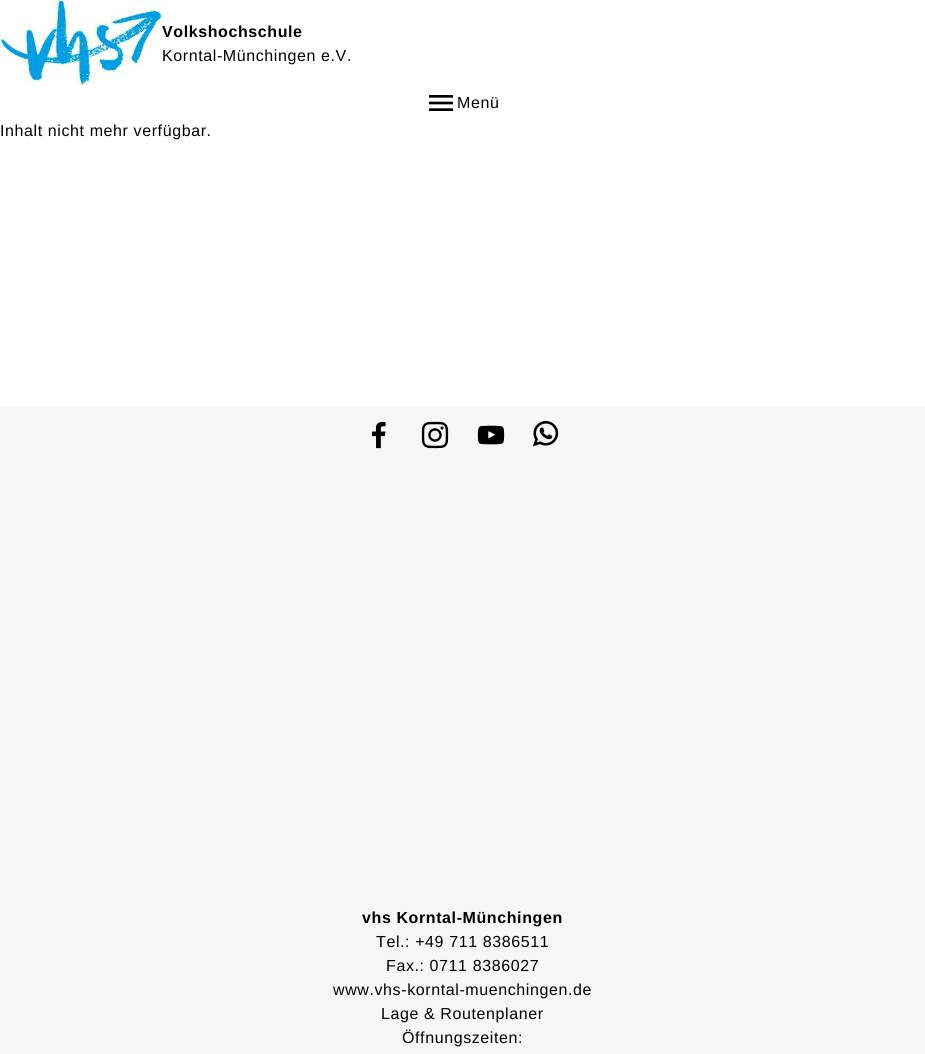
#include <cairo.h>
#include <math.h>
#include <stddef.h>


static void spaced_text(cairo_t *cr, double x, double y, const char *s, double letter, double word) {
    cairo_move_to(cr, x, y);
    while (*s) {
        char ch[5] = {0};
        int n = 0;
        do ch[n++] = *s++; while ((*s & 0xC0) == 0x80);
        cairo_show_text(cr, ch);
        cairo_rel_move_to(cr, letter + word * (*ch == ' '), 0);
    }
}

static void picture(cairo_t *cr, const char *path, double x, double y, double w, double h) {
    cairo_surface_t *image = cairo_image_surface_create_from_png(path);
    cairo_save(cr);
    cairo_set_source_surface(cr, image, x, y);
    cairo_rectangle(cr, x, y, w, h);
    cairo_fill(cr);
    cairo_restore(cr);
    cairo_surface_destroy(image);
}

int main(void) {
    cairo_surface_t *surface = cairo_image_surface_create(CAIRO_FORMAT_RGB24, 925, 1054);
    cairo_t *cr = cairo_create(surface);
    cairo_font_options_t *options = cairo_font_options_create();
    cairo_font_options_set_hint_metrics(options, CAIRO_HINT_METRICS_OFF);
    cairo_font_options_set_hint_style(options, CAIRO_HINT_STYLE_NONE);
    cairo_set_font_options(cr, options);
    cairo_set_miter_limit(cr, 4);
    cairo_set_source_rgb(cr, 1, 1, 1);
    cairo_paint(cr);
    picture(cr, "img1.png", 0, 0, 162, 87);
    cairo_select_font_face(cr, "Liberation Sans", CAIRO_FONT_SLANT_NORMAL, CAIRO_FONT_WEIGHT_BOLD);
    cairo_set_font_size(cr, 16);
    cairo_set_source_rgb(cr, 0, 0, 0);
    spaced_text(cr, 162, 37, "Volkshochschule", 0.6, 0);
    cairo_select_font_face(cr, "Liberation Sans", CAIRO_FONT_SLANT_NORMAL, CAIRO_FONT_WEIGHT_NORMAL);
    spaced_text(cr, 162, 61, "Korntal-Münchingen e.V.", 0.6, 0);
    picture(cr, "img2.png", 429, 95, 24, 16);
    spaced_text(cr, 457, 108, "Menü", 0.6, 0);
    spaced_text(cr, 0, 136, "Inhalt nicht mehr verfügbar.", 0.6, 0);
    cairo_set_source_rgb(cr, 0.961, 0.961, 0.961);
    cairo_rectangle(cr, 0, 407, 925, 647);
    cairo_fill(cr);
    picture(cr, "img3.png", 372, 421, 14, 28);
    picture(cr, "img4.png", 421, 421, 28, 28);
    picture(cr, "img5.png", 477, 425, 28, 20);
    picture(cr, "img6.png", 533, 421, 26, 26);
    cairo_select_font_face(cr, "Liberation Sans", CAIRO_FONT_SLANT_NORMAL, CAIRO_FONT_WEIGHT_BOLD);
    cairo_set_source_rgb(cr, 0, 0, 0);
    spaced_text(cr, 362, 923, "vhs Korntal-Münchingen", 0.6, 0);
    cairo_select_font_face(cr, "Liberation Sans", CAIRO_FONT_SLANT_NORMAL, CAIRO_FONT_WEIGHT_NORMAL);
    spaced_text(cr, 376, 947, "Tel.: +49 711 8386511", 0.6, 0);
    spaced_text(cr, 386, 971, "Fax.: 0711 8386027", 0.6, 0);
    spaced_text(cr, 333, 995, "www.vhs-korntal-muenchingen.de", 0.6, 0);
    spaced_text(cr, 381, 1019, "Lage & Routenplaner", 0.6, 0);
    spaced_text(cr, 402, 1043, "Öffnungszeiten:", 0.6, 0);
    cairo_surface_write_to_png(surface, "page.png");
    cairo_font_options_destroy(options);
    cairo_destroy(cr);
    cairo_surface_destroy(surface);
    return 0;
}
